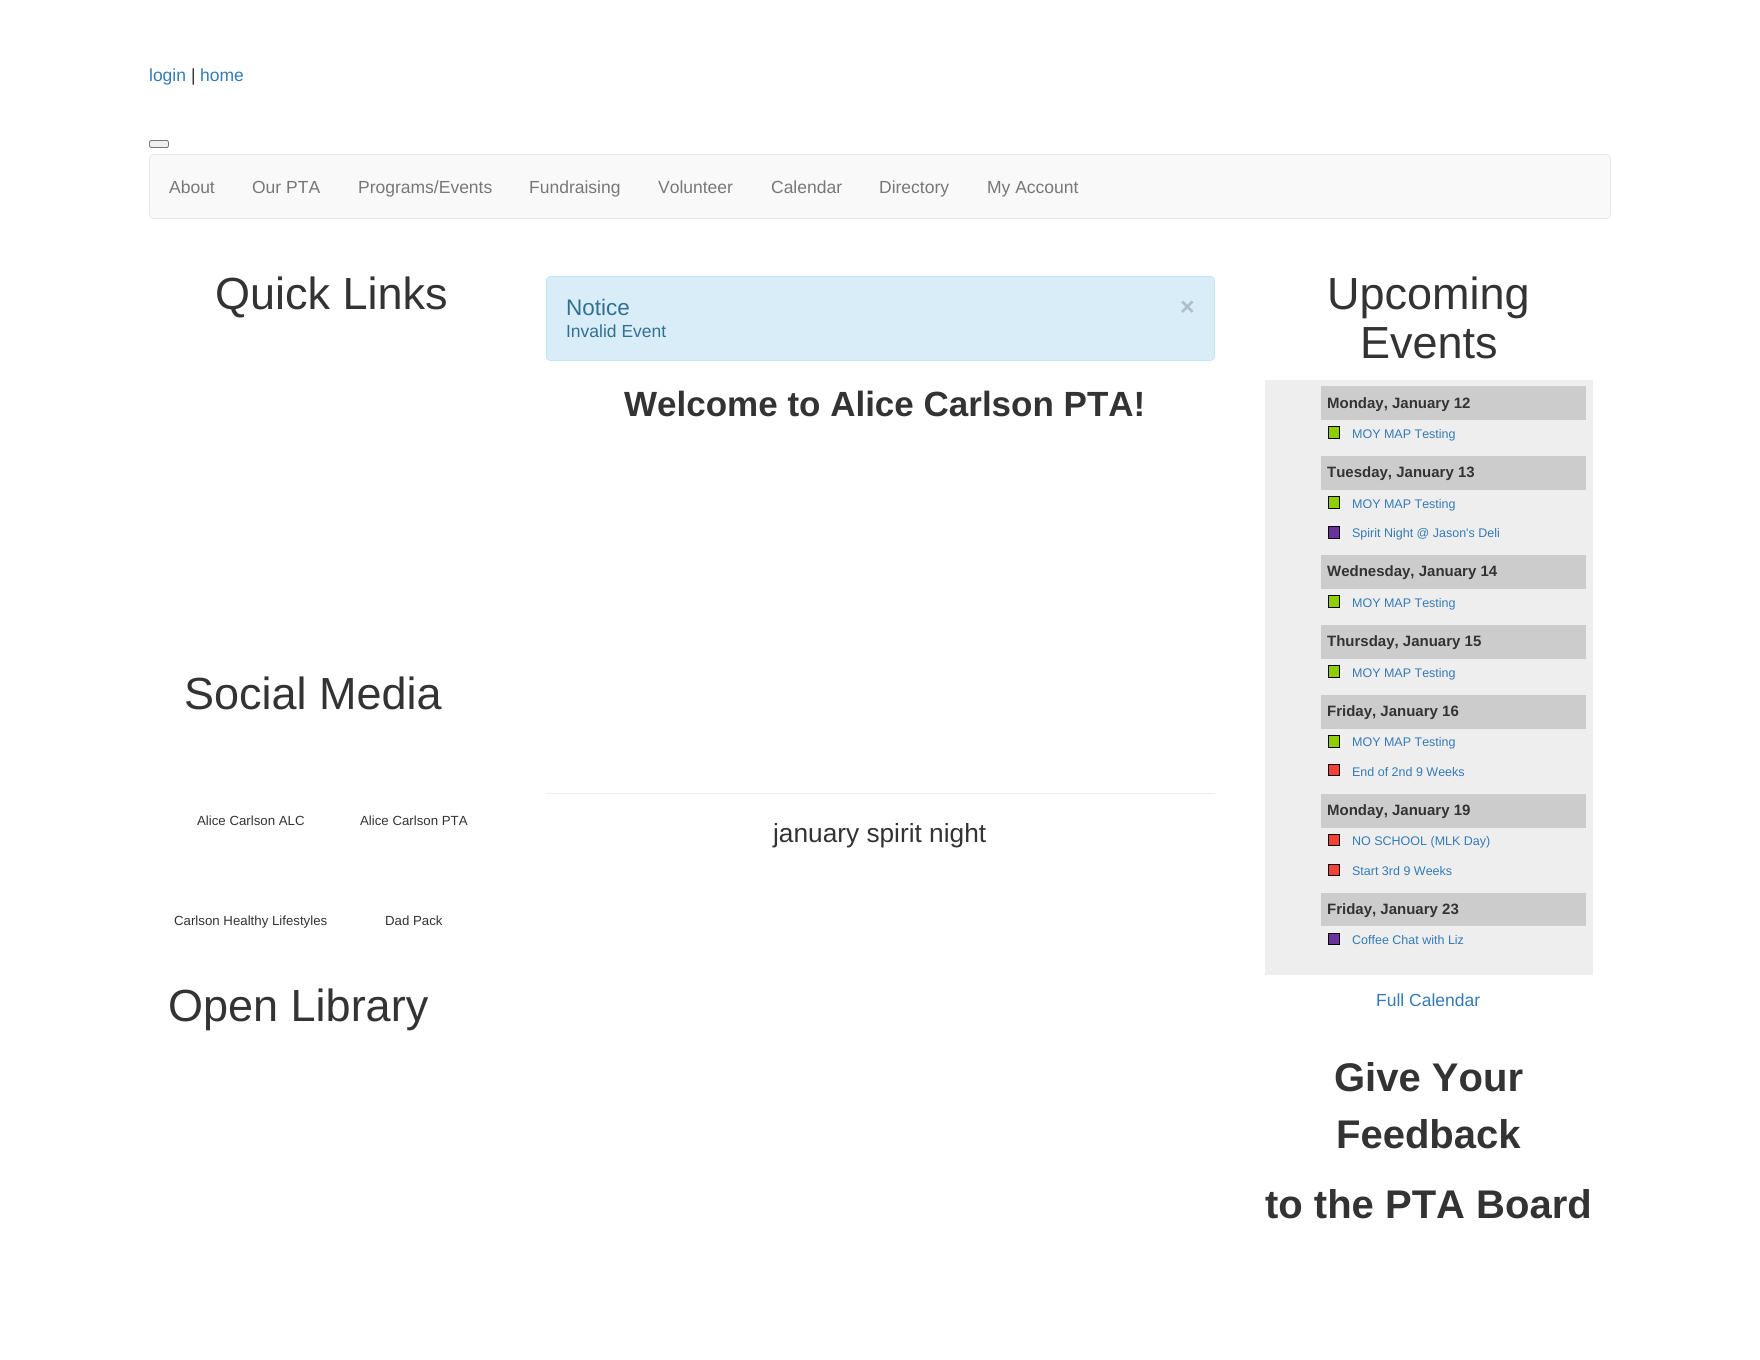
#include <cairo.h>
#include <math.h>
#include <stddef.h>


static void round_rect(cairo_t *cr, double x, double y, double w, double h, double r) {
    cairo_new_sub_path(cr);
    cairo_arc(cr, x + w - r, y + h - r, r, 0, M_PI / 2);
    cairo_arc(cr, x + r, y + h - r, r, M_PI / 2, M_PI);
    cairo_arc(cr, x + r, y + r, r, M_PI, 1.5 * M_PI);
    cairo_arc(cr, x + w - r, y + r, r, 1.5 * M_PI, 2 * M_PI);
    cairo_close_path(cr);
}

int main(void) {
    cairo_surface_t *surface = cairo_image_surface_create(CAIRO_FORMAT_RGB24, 1760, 1360);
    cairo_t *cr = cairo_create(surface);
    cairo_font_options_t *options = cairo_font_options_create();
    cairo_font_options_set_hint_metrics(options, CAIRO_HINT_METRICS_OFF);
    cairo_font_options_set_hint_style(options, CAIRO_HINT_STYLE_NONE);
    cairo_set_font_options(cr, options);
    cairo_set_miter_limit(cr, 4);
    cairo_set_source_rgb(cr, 1, 1, 1);
    cairo_paint(cr);
    cairo_select_font_face(cr, "Liberation Sans", CAIRO_FONT_SLANT_NORMAL, CAIRO_FONT_WEIGHT_NORMAL);
    cairo_set_font_size(cr, 17.5);
    cairo_set_source_rgb(cr, 0.2, 0.478, 0.718);
    cairo_move_to(cr, 149, 81);
    cairo_show_text(cr, "login");
    cairo_set_source_rgb(cr, 0.2, 0.2, 0.2);
    cairo_move_to(cr, 191, 81);
    cairo_show_text(cr, "|");
    cairo_set_source_rgb(cr, 0.2, 0.478, 0.718);
    cairo_move_to(cr, 200, 81);
    cairo_show_text(cr, "home");
    cairo_set_source_rgb(cr, 0.937, 0.937, 0.937);
    round_rect(cr, 149.5, 140.5, 19, 7, 2);
    cairo_fill_preserve(cr);
    cairo_set_source_rgb(cr, 0.463, 0.463, 0.463);
    cairo_set_line_width(cr, 1);
    cairo_stroke(cr);
    cairo_set_source_rgb(cr, 0.973, 0.973, 0.973);
    round_rect(cr, 149.5, 154.5, 1461, 64, 4.5);
    cairo_fill_preserve(cr);
    cairo_set_source_rgb(cr, 0.906, 0.906, 0.906);
    cairo_stroke(cr);
    cairo_set_source_rgb(cr, 0.467, 0.467, 0.467);
    cairo_move_to(cr, 169, 193);
    cairo_show_text(cr, "About");
    cairo_move_to(cr, 252, 193);
    cairo_show_text(cr, "Our PTA");
    cairo_move_to(cr, 358, 193);
    cairo_show_text(cr, "Programs/Events");
    cairo_move_to(cr, 529, 193);
    cairo_show_text(cr, "Fundraising");
    cairo_move_to(cr, 658, 193);
    cairo_show_text(cr, "Volunteer");
    cairo_move_to(cr, 771, 193);
    cairo_show_text(cr, "Calendar");
    cairo_move_to(cr, 879, 193);
    cairo_show_text(cr, "Directory");
    cairo_move_to(cr, 987, 193);
    cairo_show_text(cr, "My Account");
    cairo_set_font_size(cr, 45);
    cairo_set_source_rgb(cr, 0.2, 0.2, 0.2);
    cairo_move_to(cr, 215, 309);
    cairo_show_text(cr, "Quick Links");
    cairo_move_to(cr, 184, 709);
    cairo_show_text(cr, "Social Media");
    cairo_set_font_size(cr, 13.25);
    cairo_move_to(cr, 197, 825);
    cairo_show_text(cr, "Alice Carlson ALC");
    cairo_move_to(cr, 360, 825);
    cairo_show_text(cr, "Alice Carlson PTA");
    cairo_move_to(cr, 174, 925);
    cairo_show_text(cr, "Carlson Healthy Lifestyles");
    cairo_move_to(cr, 385, 925);
    cairo_show_text(cr, "Dad Pack");
    cairo_set_font_size(cr, 45);
    cairo_move_to(cr, 168, 1021);
    cairo_show_text(cr, "Open Library");
    cairo_set_source_rgb(cr, 0.851, 0.929, 0.969);
    round_rect(cr, 546.5, 276.5, 668, 84, 4.5);
    cairo_fill_preserve(cr);
    cairo_set_source_rgb(cr, 0.737, 0.91, 0.945);
    cairo_stroke(cr);
    cairo_set_font_size(cr, 22.5);
    cairo_set_source_rgb(cr, 0.192, 0.439, 0.561);
    cairo_move_to(cr, 566, 315);
    cairo_show_text(cr, "Notice");
    cairo_select_font_face(cr, "Liberation Sans", CAIRO_FONT_SLANT_NORMAL, CAIRO_FONT_WEIGHT_BOLD);
    cairo_set_font_size(cr, 25);
    cairo_set_source_rgb(cr, 0.682, 0.745, 0.776);
    cairo_move_to(cr, 1180, 315);
    cairo_show_text(cr, "×");
    cairo_select_font_face(cr, "Liberation Sans", CAIRO_FONT_SLANT_NORMAL, CAIRO_FONT_WEIGHT_NORMAL);
    cairo_set_font_size(cr, 17.5);
    cairo_set_source_rgb(cr, 0.192, 0.439, 0.561);
    cairo_move_to(cr, 566, 337);
    cairo_show_text(cr, "Invalid Event");
    cairo_select_font_face(cr, "Liberation Sans", CAIRO_FONT_SLANT_NORMAL, CAIRO_FONT_WEIGHT_BOLD);
    cairo_set_font_size(cr, 35);
    cairo_set_source_rgb(cr, 0.2, 0.2, 0.2);
    cairo_move_to(cr, 624, 416);
    cairo_show_text(cr, "Welcome to Alice Carlson PTA!");
    cairo_set_source_rgb(cr, 0.933, 0.933, 0.933);
    cairo_rectangle(cr, 546, 793, 669, 1);
    cairo_fill(cr);
    cairo_select_font_face(cr, "Liberation Sans", CAIRO_FONT_SLANT_NORMAL, CAIRO_FONT_WEIGHT_NORMAL);
    cairo_set_font_size(cr, 26.25);
    cairo_set_source_rgb(cr, 0.2, 0.2, 0.2);
    cairo_move_to(cr, 773, 842);
    cairo_show_text(cr, "january spirit night");
    cairo_set_font_size(cr, 45);
    cairo_move_to(cr, 1327, 309);
    cairo_show_text(cr, "Upcoming");
    cairo_move_to(cr, 1360, 358);
    cairo_show_text(cr, "Events");
    cairo_set_source_rgb(cr, 0.933, 0.933, 0.933);
    cairo_rectangle(cr, 1265, 380, 328, 595);
    cairo_fill(cr);
    cairo_set_source_rgb(cr, 0.8, 0.8, 0.8);
    cairo_rectangle(cr, 1321, 386, 265, 34);
    cairo_fill(cr);
    cairo_select_font_face(cr, "Liberation Sans", CAIRO_FONT_SLANT_NORMAL, CAIRO_FONT_WEIGHT_BOLD);
    cairo_set_font_size(cr, 15);
    cairo_set_source_rgb(cr, 0.2, 0.2, 0.2);
    cairo_move_to(cr, 1327, 408);
    cairo_show_text(cr, "Monday, January 12");
    cairo_set_source_rgb(cr, 0.561, 0.808, 0);
    cairo_rectangle(cr, 1328.5, 426.5, 11, 12);
    cairo_fill_preserve(cr);
    cairo_set_source_rgb(cr, 0, 0, 0);
    cairo_stroke(cr);
    cairo_select_font_face(cr, "Liberation Sans", CAIRO_FONT_SLANT_NORMAL, CAIRO_FONT_WEIGHT_NORMAL);
    cairo_set_font_size(cr, 12.5);
    cairo_set_source_rgb(cr, 0.2, 0.478, 0.718);
    cairo_move_to(cr, 1352, 438);
    cairo_show_text(cr, "MOY MAP Testing");
    cairo_set_source_rgb(cr, 0.8, 0.8, 0.8);
    cairo_rectangle(cr, 1321, 456, 265, 34);
    cairo_fill(cr);
    cairo_select_font_face(cr, "Liberation Sans", CAIRO_FONT_SLANT_NORMAL, CAIRO_FONT_WEIGHT_BOLD);
    cairo_set_font_size(cr, 15);
    cairo_set_source_rgb(cr, 0.2, 0.2, 0.2);
    cairo_move_to(cr, 1327, 477);
    cairo_show_text(cr, "Tuesday, January 13");
    cairo_set_source_rgb(cr, 0.561, 0.808, 0);
    cairo_rectangle(cr, 1328.5, 496.5, 11, 12);
    cairo_fill_preserve(cr);
    cairo_set_source_rgb(cr, 0, 0, 0);
    cairo_stroke(cr);
    cairo_select_font_face(cr, "Liberation Sans", CAIRO_FONT_SLANT_NORMAL, CAIRO_FONT_WEIGHT_NORMAL);
    cairo_set_font_size(cr, 12.5);
    cairo_set_source_rgb(cr, 0.2, 0.478, 0.718);
    cairo_move_to(cr, 1352, 508);
    cairo_show_text(cr, "MOY MAP Testing");
    cairo_set_source_rgb(cr, 0.416, 0.196, 0.624);
    cairo_rectangle(cr, 1328.5, 526.5, 11, 12);
    cairo_fill_preserve(cr);
    cairo_set_source_rgb(cr, 0, 0, 0);
    cairo_stroke(cr);
    cairo_set_source_rgb(cr, 0.2, 0.478, 0.718);
    cairo_move_to(cr, 1352, 537);
    cairo_show_text(cr, "Spirit Night @ Jason's Deli");
    cairo_set_source_rgb(cr, 0.8, 0.8, 0.8);
    cairo_rectangle(cr, 1321, 555, 265, 34);
    cairo_fill(cr);
    cairo_select_font_face(cr, "Liberation Sans", CAIRO_FONT_SLANT_NORMAL, CAIRO_FONT_WEIGHT_BOLD);
    cairo_set_font_size(cr, 15);
    cairo_set_source_rgb(cr, 0.2, 0.2, 0.2);
    cairo_move_to(cr, 1327, 576);
    cairo_show_text(cr, "Wednesday, January 14");
    cairo_set_source_rgb(cr, 0.561, 0.808, 0);
    cairo_rectangle(cr, 1328.5, 595.5, 11, 12);
    cairo_fill_preserve(cr);
    cairo_set_source_rgb(cr, 0, 0, 0);
    cairo_stroke(cr);
    cairo_select_font_face(cr, "Liberation Sans", CAIRO_FONT_SLANT_NORMAL, CAIRO_FONT_WEIGHT_NORMAL);
    cairo_set_font_size(cr, 12.5);
    cairo_set_source_rgb(cr, 0.2, 0.478, 0.718);
    cairo_move_to(cr, 1352, 607);
    cairo_show_text(cr, "MOY MAP Testing");
    cairo_set_source_rgb(cr, 0.8, 0.8, 0.8);
    cairo_rectangle(cr, 1321, 625, 265, 34);
    cairo_fill(cr);
    cairo_select_font_face(cr, "Liberation Sans", CAIRO_FONT_SLANT_NORMAL, CAIRO_FONT_WEIGHT_BOLD);
    cairo_set_font_size(cr, 15);
    cairo_set_source_rgb(cr, 0.2, 0.2, 0.2);
    cairo_move_to(cr, 1327, 646);
    cairo_show_text(cr, "Thursday, January 15");
    cairo_set_source_rgb(cr, 0.561, 0.808, 0);
    cairo_rectangle(cr, 1328.5, 665.5, 11, 12);
    cairo_fill_preserve(cr);
    cairo_set_source_rgb(cr, 0, 0, 0);
    cairo_stroke(cr);
    cairo_select_font_face(cr, "Liberation Sans", CAIRO_FONT_SLANT_NORMAL, CAIRO_FONT_WEIGHT_NORMAL);
    cairo_set_font_size(cr, 12.5);
    cairo_set_source_rgb(cr, 0.2, 0.478, 0.718);
    cairo_move_to(cr, 1352, 677);
    cairo_show_text(cr, "MOY MAP Testing");
    cairo_set_source_rgb(cr, 0.8, 0.8, 0.8);
    cairo_rectangle(cr, 1321, 695, 265, 34);
    cairo_fill(cr);
    cairo_select_font_face(cr, "Liberation Sans", CAIRO_FONT_SLANT_NORMAL, CAIRO_FONT_WEIGHT_BOLD);
    cairo_set_font_size(cr, 15);
    cairo_set_source_rgb(cr, 0.2, 0.2, 0.2);
    cairo_move_to(cr, 1327, 716);
    cairo_show_text(cr, "Friday, January 16");
    cairo_set_source_rgb(cr, 0.561, 0.808, 0);
    cairo_rectangle(cr, 1328.5, 735.5, 11, 12);
    cairo_fill_preserve(cr);
    cairo_set_source_rgb(cr, 0, 0, 0);
    cairo_stroke(cr);
    cairo_select_font_face(cr, "Liberation Sans", CAIRO_FONT_SLANT_NORMAL, CAIRO_FONT_WEIGHT_NORMAL);
    cairo_set_font_size(cr, 12.5);
    cairo_set_source_rgb(cr, 0.2, 0.478, 0.718);
    cairo_move_to(cr, 1352, 746);
    cairo_show_text(cr, "MOY MAP Testing");
    cairo_set_source_rgb(cr, 0.957, 0.263, 0.212);
    cairo_rectangle(cr, 1328.5, 764.5, 11, 11);
    cairo_fill_preserve(cr);
    cairo_set_source_rgb(cr, 0, 0, 0);
    cairo_stroke(cr);
    cairo_set_source_rgb(cr, 0.2, 0.478, 0.718);
    cairo_move_to(cr, 1352, 776);
    cairo_show_text(cr, "End of 2nd 9 Weeks");
    cairo_set_source_rgb(cr, 0.8, 0.8, 0.8);
    cairo_rectangle(cr, 1321, 794, 265, 34);
    cairo_fill(cr);
    cairo_select_font_face(cr, "Liberation Sans", CAIRO_FONT_SLANT_NORMAL, CAIRO_FONT_WEIGHT_BOLD);
    cairo_set_font_size(cr, 15);
    cairo_set_source_rgb(cr, 0.2, 0.2, 0.2);
    cairo_move_to(cr, 1327, 815);
    cairo_show_text(cr, "Monday, January 19");
    cairo_set_source_rgb(cr, 0.957, 0.263, 0.212);
    cairo_rectangle(cr, 1328.5, 834.5, 11, 11);
    cairo_fill_preserve(cr);
    cairo_set_source_rgb(cr, 0, 0, 0);
    cairo_stroke(cr);
    cairo_select_font_face(cr, "Liberation Sans", CAIRO_FONT_SLANT_NORMAL, CAIRO_FONT_WEIGHT_NORMAL);
    cairo_set_font_size(cr, 12.5);
    cairo_set_source_rgb(cr, 0.2, 0.478, 0.718);
    cairo_move_to(cr, 1352, 845);
    cairo_show_text(cr, "NO SCHOOL (MLK Day)");
    cairo_set_source_rgb(cr, 0.957, 0.263, 0.212);
    cairo_rectangle(cr, 1328.5, 864.5, 11, 11);
    cairo_fill_preserve(cr);
    cairo_set_source_rgb(cr, 0, 0, 0);
    cairo_stroke(cr);
    cairo_set_source_rgb(cr, 0.2, 0.478, 0.718);
    cairo_move_to(cr, 1352, 875);
    cairo_show_text(cr, "Start 3rd 9 Weeks");
    cairo_set_source_rgb(cr, 0.8, 0.8, 0.8);
    cairo_rectangle(cr, 1321, 893, 265, 33);
    cairo_fill(cr);
    cairo_select_font_face(cr, "Liberation Sans", CAIRO_FONT_SLANT_NORMAL, CAIRO_FONT_WEIGHT_BOLD);
    cairo_set_font_size(cr, 15);
    cairo_set_source_rgb(cr, 0.2, 0.2, 0.2);
    cairo_move_to(cr, 1327, 914);
    cairo_show_text(cr, "Friday, January 23");
    cairo_set_source_rgb(cr, 0.416, 0.196, 0.624);
    cairo_rectangle(cr, 1328.5, 933.5, 11, 11);
    cairo_fill_preserve(cr);
    cairo_set_source_rgb(cr, 0, 0, 0);
    cairo_stroke(cr);
    cairo_select_font_face(cr, "Liberation Sans", CAIRO_FONT_SLANT_NORMAL, CAIRO_FONT_WEIGHT_NORMAL);
    cairo_set_font_size(cr, 12.5);
    cairo_set_source_rgb(cr, 0.2, 0.478, 0.718);
    cairo_move_to(cr, 1352, 944);
    cairo_show_text(cr, "Coffee Chat with Liz");
    cairo_set_font_size(cr, 17.5);
    cairo_move_to(cr, 1376, 1006);
    cairo_show_text(cr, "Full Calendar");
    cairo_select_font_face(cr, "Liberation Sans", CAIRO_FONT_SLANT_NORMAL, CAIRO_FONT_WEIGHT_BOLD);
    cairo_set_font_size(cr, 40);
    cairo_set_source_rgb(cr, 0.2, 0.2, 0.2);
    cairo_move_to(cr, 1334, 1091);
    cairo_show_text(cr, "Give Your");
    cairo_move_to(cr, 1336, 1148);
    cairo_show_text(cr, "Feedback");
    cairo_move_to(cr, 1265, 1218);
    cairo_show_text(cr, "to the PTA Board");
    cairo_surface_write_to_png(surface, "page.png");
    cairo_font_options_destroy(options);
    cairo_destroy(cr);
    cairo_surface_destroy(surface);
    return 0;
}
